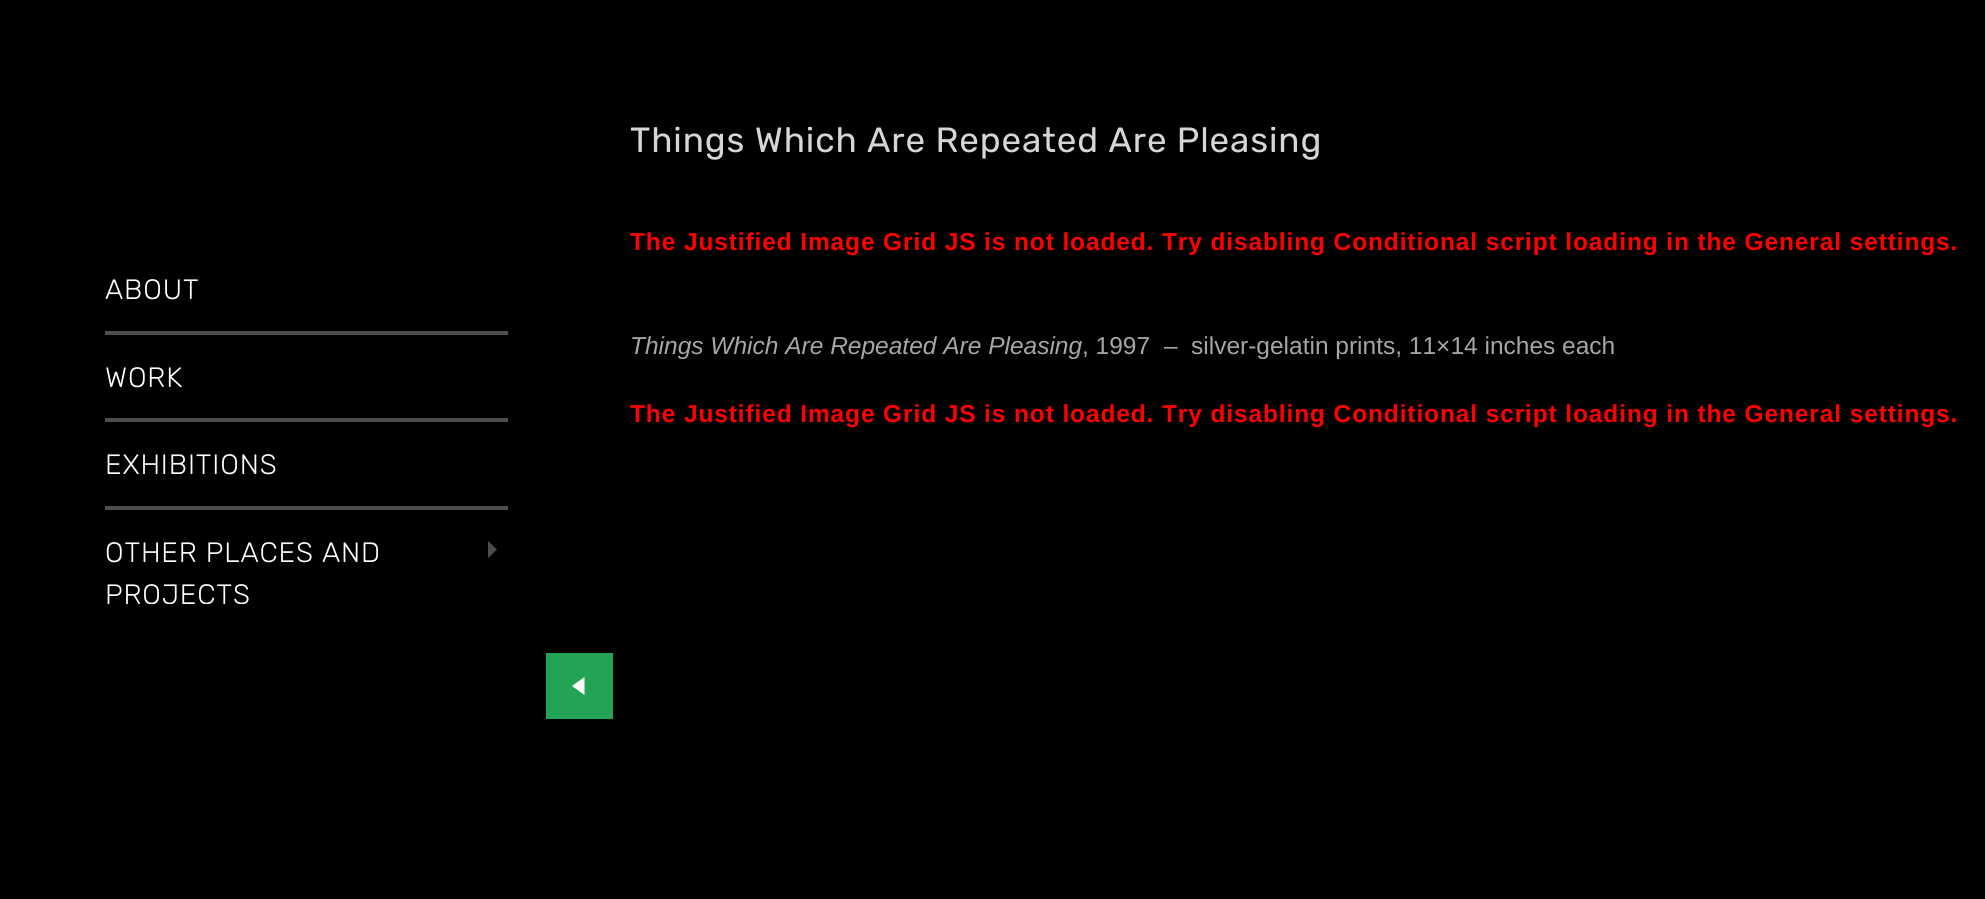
#include <cairo.h>
#include <math.h>
#include <stddef.h>


static void spaced_text(cairo_t *cr, double x, double y, const char *s, double letter, double word) {
    cairo_move_to(cr, x, y);
    while (*s) {
        char ch[5] = {0};
        int n = 0;
        do ch[n++] = *s++; while ((*s & 0xC0) == 0x80);
        cairo_show_text(cr, ch);
        cairo_rel_move_to(cr, letter + word * (*ch == ' '), 0);
    }
}

int main(void) {
    cairo_surface_t *surface = cairo_image_surface_create(CAIRO_FORMAT_RGB24, 1985, 899);
    cairo_t *cr = cairo_create(surface);
    cairo_font_options_t *options = cairo_font_options_create();
    cairo_font_options_set_hint_metrics(options, CAIRO_HINT_METRICS_OFF);
    cairo_font_options_set_hint_style(options, CAIRO_HINT_STYLE_NONE);
    cairo_set_font_options(cr, options);
    cairo_set_miter_limit(cr, 4);
    cairo_set_source_rgb(cr, 0, 0, 0);
    cairo_paint(cr);
    cairo_select_font_face(cr, "Rubik Light", CAIRO_FONT_SLANT_NORMAL, CAIRO_FONT_WEIGHT_NORMAL);
    cairo_set_font_size(cr, 28);
    cairo_set_source_rgb(cr, 1, 1, 1);
    spaced_text(cr, 105, 299, "ABOUT", 0.88, 0);
    cairo_set_source_rgb(cr, 0.302, 0.302, 0.302);
    cairo_rectangle(cr, 105, 331, 403, 4);
    cairo_fill(cr);
    cairo_set_source_rgb(cr, 1, 1, 1);
    spaced_text(cr, 105, 387, "WORK", 0.88, 0);
    cairo_set_source_rgb(cr, 0.302, 0.302, 0.302);
    cairo_rectangle(cr, 105, 418, 403, 4);
    cairo_fill(cr);
    cairo_set_source_rgb(cr, 1, 1, 1);
    spaced_text(cr, 105, 474, "EXHIBITIONS", 0.88, 0);
    cairo_set_source_rgb(cr, 0.302, 0.302, 0.302);
    cairo_rectangle(cr, 105, 506, 403, 4);
    cairo_fill(cr);
    cairo_set_source_rgb(cr, 1, 1, 1);
    spaced_text(cr, 105, 562, "OTHER PLACES AND", 0.88, 0);
    cairo_save(cr);
    cairo_rectangle(cr, 0, 247, 613, 357);
    cairo_clip(cr);
    spaced_text(cr, 105, 604, "PROJECTS", 0.88, 0);
    cairo_restore(cr);
    cairo_set_source_rgb(cr, 0.302, 0.302, 0.302);
    cairo_new_path(cr);
    cairo_move_to(cr, 488, 558);
    cairo_line_to(cr, 488, 541);
    cairo_line_to(cr, 497, 549.5);
    cairo_close_path(cr);
    cairo_fill(cr);
    cairo_set_source_rgb(cr, 0.137, 0.643, 0.333);
    cairo_rectangle(cr, 546, 653, 67, 66);
    cairo_fill(cr);
    cairo_set_source_rgb(cr, 1, 1, 1);
    cairo_new_path(cr);
    cairo_move_to(cr, 584.5, 677);
    cairo_line_to(cr, 584.5, 695);
    cairo_line_to(cr, 572, 686);
    cairo_close_path(cr);
    cairo_fill(cr);
    cairo_select_font_face(cr, "Rubik", CAIRO_FONT_SLANT_NORMAL, CAIRO_FONT_WEIGHT_NORMAL);
    cairo_set_font_size(cr, 35);
    cairo_set_source_rgb(cr, 0.839, 0.839, 0.839);
    spaced_text(cr, 630, 152, "Things Which Are Repeated Are Pleasing", 0.88, 0);
    cairo_select_font_face(cr, "Liberation Sans", CAIRO_FONT_SLANT_NORMAL, CAIRO_FONT_WEIGHT_BOLD);
    cairo_set_font_size(cr, 24.5);
    cairo_set_source_rgb(cr, 1, 0, 0);
    spaced_text(cr, 630, 250, "The Justified Image Grid JS is not loaded. Try disabling Conditional script loading in the General settings.", 0.88, 0);
    cairo_select_font_face(cr, "Liberation Sans", CAIRO_FONT_SLANT_ITALIC, CAIRO_FONT_WEIGHT_NORMAL);
    cairo_set_source_rgb(cr, 0.651, 0.651, 0.651);
    cairo_move_to(cr, 630, 354);
    cairo_show_text(cr, "Things Which Are Repeated Are Pleasing");
    cairo_select_font_face(cr, "Liberation Sans", CAIRO_FONT_SLANT_NORMAL, CAIRO_FONT_WEIGHT_NORMAL);
    cairo_move_to(cr, 1082, 354);
    cairo_show_text(cr, ", 1997");
    cairo_select_font_face(cr, "Liberation Sans", CAIRO_FONT_SLANT_ITALIC, CAIRO_FONT_WEIGHT_NORMAL);
    cairo_move_to(cr, 1164, 354);
    cairo_show_text(cr, "–");
    cairo_select_font_face(cr, "Liberation Sans", CAIRO_FONT_SLANT_NORMAL, CAIRO_FONT_WEIGHT_NORMAL);
    cairo_move_to(cr, 1191, 354);
    cairo_show_text(cr, "silver-gelatin prints, 11×14 inches each");
    cairo_select_font_face(cr, "Liberation Sans", CAIRO_FONT_SLANT_NORMAL, CAIRO_FONT_WEIGHT_BOLD);
    cairo_set_source_rgb(cr, 1, 0, 0);
    spaced_text(cr, 630, 422, "The Justified Image Grid JS is not loaded. Try disabling Conditional script loading in the General settings.", 0.88, 0);
    cairo_surface_write_to_png(surface, "page.png");
    cairo_font_options_destroy(options);
    cairo_destroy(cr);
    cairo_surface_destroy(surface);
    return 0;
}
